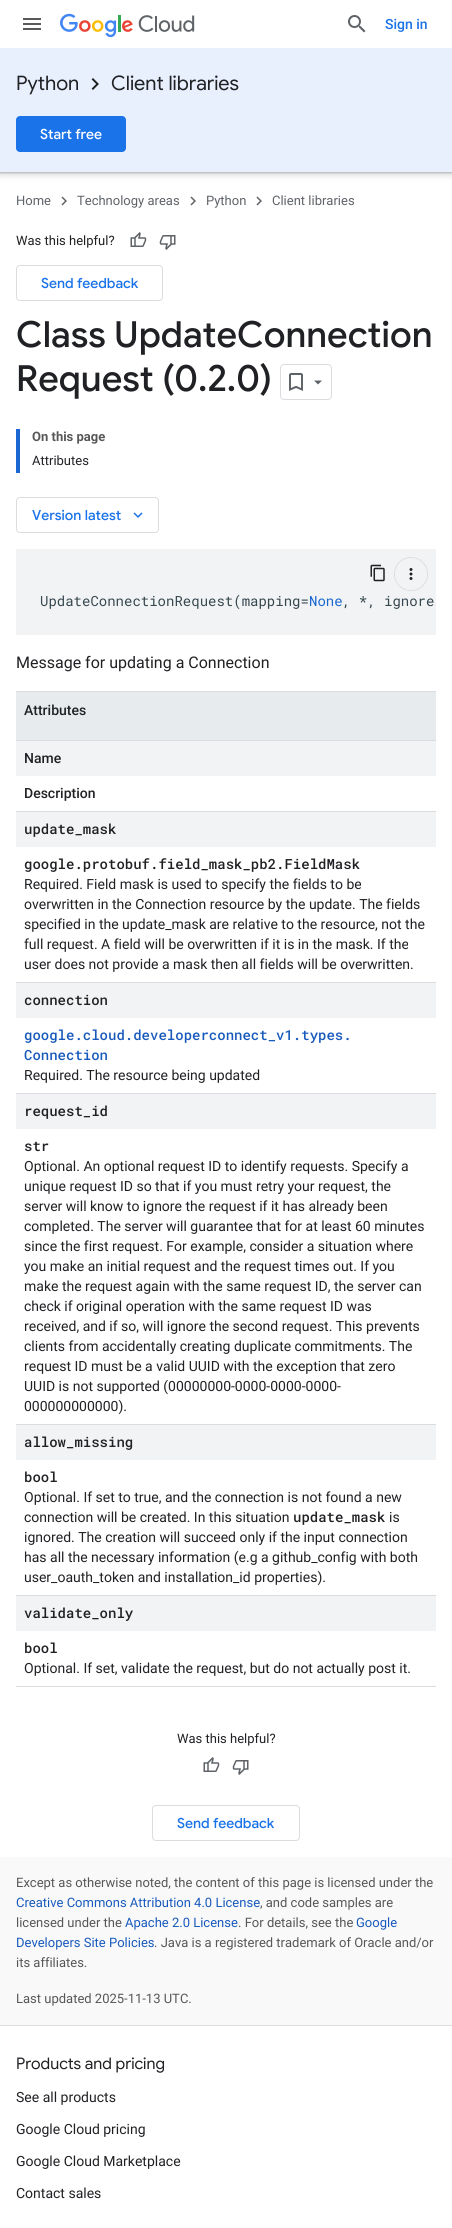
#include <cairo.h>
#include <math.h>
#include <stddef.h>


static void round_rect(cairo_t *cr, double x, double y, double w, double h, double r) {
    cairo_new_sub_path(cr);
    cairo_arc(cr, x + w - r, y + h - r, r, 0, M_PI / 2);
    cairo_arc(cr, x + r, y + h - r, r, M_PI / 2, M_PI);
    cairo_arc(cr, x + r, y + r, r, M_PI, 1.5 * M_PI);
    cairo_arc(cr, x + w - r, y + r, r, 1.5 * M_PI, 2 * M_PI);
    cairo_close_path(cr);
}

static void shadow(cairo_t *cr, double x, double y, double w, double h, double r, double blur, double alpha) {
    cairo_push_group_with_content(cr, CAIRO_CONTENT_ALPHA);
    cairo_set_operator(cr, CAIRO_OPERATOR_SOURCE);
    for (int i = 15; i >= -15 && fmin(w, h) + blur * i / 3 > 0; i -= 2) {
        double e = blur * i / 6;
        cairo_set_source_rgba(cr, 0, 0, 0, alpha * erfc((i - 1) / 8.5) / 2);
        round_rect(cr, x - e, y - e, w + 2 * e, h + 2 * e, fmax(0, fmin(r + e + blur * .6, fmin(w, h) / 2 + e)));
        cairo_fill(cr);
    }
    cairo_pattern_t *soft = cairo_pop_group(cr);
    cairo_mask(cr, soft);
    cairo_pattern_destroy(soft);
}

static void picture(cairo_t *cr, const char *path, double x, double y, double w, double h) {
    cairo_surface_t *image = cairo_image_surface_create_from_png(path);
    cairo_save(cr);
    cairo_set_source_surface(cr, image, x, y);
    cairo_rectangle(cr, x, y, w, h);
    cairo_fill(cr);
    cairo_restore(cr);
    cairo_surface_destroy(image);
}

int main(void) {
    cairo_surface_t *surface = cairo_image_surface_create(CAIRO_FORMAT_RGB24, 452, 2228);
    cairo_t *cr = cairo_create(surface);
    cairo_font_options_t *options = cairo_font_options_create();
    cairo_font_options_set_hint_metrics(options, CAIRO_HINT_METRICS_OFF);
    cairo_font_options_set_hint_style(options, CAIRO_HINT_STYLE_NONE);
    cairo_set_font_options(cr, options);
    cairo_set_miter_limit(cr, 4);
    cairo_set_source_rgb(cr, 0.973, 0.976, 0.98);
    cairo_paint(cr);
    cairo_set_source_rgb(cr, 1, 1, 1);
    cairo_rectangle(cr, 0, 172, 452, 1685);
    cairo_fill(cr);
    cairo_set_source_rgb(cr, 0.235, 0.251, 0.263);
    shadow(cr, -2, 48, 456, 128, 0, 3, 0.15);
    shadow(cr, 0, 49, 452, 124, 0, 1, 0.3);
    cairo_set_source_rgb(cr, 1, 1, 1);
    cairo_rectangle(cr, 0, 0, 452, 48);
    cairo_fill(cr);
    picture(cr, "img1.png", 23, 18, 18, 12);
    picture(cr, "img2.png", 60, 13, 135, 25);
    picture(cr, "img3.png", 348, 15, 18, 18);
    cairo_select_font_face(cr, "Roboto Medium", CAIRO_FONT_SLANT_NORMAL, CAIRO_FONT_WEIGHT_NORMAL);
    cairo_set_font_size(cr, 14);
    cairo_set_source_rgb(cr, 0.102, 0.451, 0.91);
    cairo_move_to(cr, 385, 29);
    cairo_show_text(cr, "Sign in");
    cairo_set_source_rgb(cr, 0.91, 0.941, 0.996);
    cairo_rectangle(cr, 0, 48, 452, 124);
    cairo_fill(cr);
    cairo_select_font_face(cr, "Google Sans", CAIRO_FONT_SLANT_NORMAL, CAIRO_FONT_WEIGHT_NORMAL);
    cairo_set_font_size(cr, 20);
    cairo_set_source_rgb(cr, 0.125, 0.129, 0.141);
    cairo_move_to(cr, 16, 90);
    cairo_show_text(cr, "Python");
    picture(cr, "img4.png", 91, 78, 8, 12);
    cairo_move_to(cr, 111, 90);
    cairo_show_text(cr, "Client libraries");
    cairo_set_source_rgb(cr, 0.102, 0.451, 0.91);
    round_rect(cr, 16, 116, 110, 36, 4);
    cairo_fill(cr);
    cairo_select_font_face(cr, "Google Sans Medium", CAIRO_FONT_SLANT_NORMAL, CAIRO_FONT_WEIGHT_NORMAL);
    cairo_set_font_size(cr, 14);
    cairo_set_source_rgb(cr, 1, 1, 1);
    cairo_move_to(cr, 40, 139);
    cairo_show_text(cr, "Start free");
    cairo_select_font_face(cr, "Roboto", CAIRO_FONT_SLANT_NORMAL, CAIRO_FONT_WEIGHT_NORMAL);
    cairo_set_font_size(cr, 13);
    cairo_set_source_rgb(cr, 0.373, 0.388, 0.408);
    cairo_move_to(cr, 16, 205);
    cairo_show_text(cr, "Home");
    picture(cr, "img5.png", 61, 196, 6, 10);
    cairo_move_to(cr, 77, 205);
    cairo_show_text(cr, "Technology areas");
    picture(cr, "img5.png", 190, 196, 6, 10);
    cairo_move_to(cr, 206, 205);
    cairo_show_text(cr, "Python");
    picture(cr, "img5.png", 256, 196, 6, 10);
    cairo_move_to(cr, 272, 205);
    cairo_show_text(cr, "Client libraries");
    cairo_set_source_rgb(cr, 0.125, 0.129, 0.141);
    cairo_move_to(cr, 16, 245);
    cairo_show_text(cr, "Was this helpful?");
    picture(cr, "img6.png", 130, 232, 17, 15);
    picture(cr, "img7.png", 159, 235, 17, 15);
    round_rect(cr, 16.5, 265.5, 146, 35, 3.5);
    cairo_set_source_rgb(cr, 0.855, 0.863, 0.878);
    cairo_set_line_width(cr, 1);
    cairo_stroke(cr);
    cairo_select_font_face(cr, "Google Sans Medium", CAIRO_FONT_SLANT_NORMAL, CAIRO_FONT_WEIGHT_NORMAL);
    cairo_set_font_size(cr, 14);
    cairo_set_source_rgb(cr, 0.102, 0.451, 0.91);
    cairo_move_to(cr, 41, 288);
    cairo_show_text(cr, "Send feedback");
    cairo_set_font_size(cr, 36);
    cairo_set_source_rgb(cr, 0.125, 0.129, 0.141);
    cairo_move_to(cr, 16, 347);
    cairo_show_text(cr, "Class UpdateConnection");
    cairo_move_to(cr, 16, 391);
    cairo_show_text(cr, "Request (0.2.0)");
    round_rect(cr, 280.5, 364.5, 51, 35, 3.5);
    cairo_set_source_rgb(cr, 0.855, 0.863, 0.878);
    cairo_stroke(cr);
    picture(cr, "img8.png", 289, 373, 14, 18);
    cairo_set_source_rgb(cr, 0.373, 0.388, 0.408);
    cairo_new_path(cr);
    cairo_move_to(cr, 314, 380.5);
    cairo_line_to(cr, 322, 380.5);
    cairo_line_to(cr, 318, 384.5);
    cairo_close_path(cr);
    cairo_fill(cr);
    cairo_set_source_rgb(cr, 0.098, 0.404, 0.824);
    cairo_rectangle(cr, 16, 429, 4, 44);
    cairo_fill(cr);
    cairo_select_font_face(cr, "Roboto", CAIRO_FONT_SLANT_NORMAL, CAIRO_FONT_WEIGHT_BOLD);
    cairo_set_font_size(cr, 13);
    cairo_set_source_rgb(cr, 0.341, 0.341, 0.345);
    cairo_move_to(cr, 32, 441);
    cairo_show_text(cr, "On this page");
    cairo_select_font_face(cr, "Roboto", CAIRO_FONT_SLANT_NORMAL, CAIRO_FONT_WEIGHT_NORMAL);
    cairo_set_source_rgb(cr, 0.125, 0.129, 0.141);
    cairo_move_to(cr, 32, 465);
    cairo_show_text(cr, "Attributes");
    round_rect(cr, 16.5, 497.5, 142, 35, 3.5);
    cairo_set_source_rgb(cr, 0.855, 0.863, 0.878);
    cairo_stroke(cr);
    cairo_select_font_face(cr, "Google Sans Medium", CAIRO_FONT_SLANT_NORMAL, CAIRO_FONT_WEIGHT_NORMAL);
    cairo_set_font_size(cr, 14);
    cairo_set_source_rgb(cr, 0.102, 0.451, 0.91);
    cairo_move_to(cr, 32, 520);
    cairo_show_text(cr, "Version latest");
    picture(cr, "img9.png", 133, 512, 10, 6);
    cairo_set_source_rgb(cr, 0.945, 0.953, 0.957);
    cairo_rectangle(cr, 16, 549, 420, 86);
    cairo_fill(cr);
    picture(cr, "img10.png", 370, 564, 15, 18);
    cairo_arc(cr, 411, 574, 16.5, 0, 2 * M_PI);
    cairo_set_source_rgb(cr, 0.855, 0.863, 0.878);
    cairo_stroke(cr);
    cairo_set_source_rgb(cr, 0.945, 0.953, 0.957);
    cairo_arc(cr, 411, 574, 16, 0, 2 * M_PI);
    cairo_fill(cr);
    picture(cr, "img11.png", 409, 568, 4, 12);
    cairo_select_font_face(cr, "Roboto Mono", CAIRO_FONT_SLANT_NORMAL, CAIRO_FONT_WEIGHT_NORMAL);
    cairo_set_source_rgb(cr, 0.216, 0.278, 0.31);
    cairo_move_to(cr, 40, 606);
    cairo_show_text(cr, "UpdateConnectionRequest(mapping=");
    cairo_set_source_rgb(cr, 0.098, 0.404, 0.824);
    cairo_move_to(cr, 309, 606);
    cairo_show_text(cr, "None");
    cairo_set_source_rgb(cr, 0.216, 0.278, 0.31);
    cairo_move_to(cr, 342, 606);
    cairo_show_text(cr, ", *, ignore");
    cairo_select_font_face(cr, "Roboto", CAIRO_FONT_SLANT_NORMAL, CAIRO_FONT_WEIGHT_NORMAL);
    cairo_set_font_size(cr, 16);
    cairo_set_source_rgb(cr, 0.125, 0.129, 0.141);
    cairo_move_to(cr, 16, 668);
    cairo_show_text(cr, "Message for updating a Connection");
    cairo_set_source_rgb(cr, 0.855, 0.863, 0.878);
    cairo_rectangle(cr, 16, 691, 420, 1);
    cairo_fill(cr);
    cairo_rectangle(cr, 16, 740, 420, 1);
    cairo_fill(cr);
    cairo_set_source_rgb(cr, 0.91, 0.918, 0.929);
    cairo_rectangle(cr, 16, 692, 420, 48);
    cairo_fill(cr);
    cairo_select_font_face(cr, "Roboto Medium", CAIRO_FONT_SLANT_NORMAL, CAIRO_FONT_WEIGHT_NORMAL);
    cairo_set_font_size(cr, 14);
    cairo_set_source_rgb(cr, 0.125, 0.129, 0.141);
    cairo_move_to(cr, 24, 715);
    cairo_show_text(cr, "Attributes");
    cairo_set_source_rgb(cr, 0.855, 0.863, 0.878);
    cairo_rectangle(cr, 16, 811, 420, 1);
    cairo_fill(cr);
    cairo_set_source_rgb(cr, 0.945, 0.953, 0.957);
    cairo_rectangle(cr, 16, 741, 420, 35);
    cairo_fill(cr);
    cairo_set_source_rgb(cr, 0.125, 0.129, 0.141);
    cairo_move_to(cr, 24, 763);
    cairo_show_text(cr, "Name");
    cairo_move_to(cr, 24, 798);
    cairo_show_text(cr, "Description");
    cairo_set_source_rgb(cr, 0.855, 0.863, 0.878);
    cairo_rectangle(cr, 16, 982, 420, 1);
    cairo_fill(cr);
    cairo_set_source_rgb(cr, 0.945, 0.953, 0.957);
    cairo_rectangle(cr, 16, 812, 420, 35);
    cairo_fill(cr);
    cairo_select_font_face(cr, "Roboto Mono Medium", CAIRO_FONT_SLANT_NORMAL, CAIRO_FONT_WEIGHT_NORMAL);
    cairo_set_source_rgb(cr, 0.125, 0.129, 0.141);
    cairo_move_to(cr, 24, 834);
    cairo_show_text(cr, "update_mask");
    cairo_move_to(cr, 24, 869);
    cairo_show_text(cr, "google.protobuf.field_mask_pb2.FieldMask");
    cairo_select_font_face(cr, "Roboto", CAIRO_FONT_SLANT_NORMAL, CAIRO_FONT_WEIGHT_NORMAL);
    cairo_move_to(cr, 24, 889);
    cairo_show_text(cr, "Required. Field mask is used to specify the fields to be");
    cairo_move_to(cr, 24, 909);
    cairo_show_text(cr, "overwritten in the Connection resource by the update. The fields");
    cairo_move_to(cr, 24, 929);
    cairo_show_text(cr, "specified in the update_mask are relative to the resource, not the");
    cairo_move_to(cr, 24, 949);
    cairo_show_text(cr, "full request. A field will be overwritten if it is in the mask. If the");
    cairo_move_to(cr, 24, 969);
    cairo_show_text(cr, "user does not provide a mask then all fields will be overwritten.");
    cairo_set_source_rgb(cr, 0.855, 0.863, 0.878);
    cairo_rectangle(cr, 16, 1093, 420, 1);
    cairo_fill(cr);
    cairo_set_source_rgb(cr, 0.945, 0.953, 0.957);
    cairo_rectangle(cr, 16, 983, 420, 35);
    cairo_fill(cr);
    cairo_select_font_face(cr, "Roboto Mono Medium", CAIRO_FONT_SLANT_NORMAL, CAIRO_FONT_WEIGHT_NORMAL);
    cairo_set_source_rgb(cr, 0.125, 0.129, 0.141);
    cairo_move_to(cr, 24, 1005);
    cairo_show_text(cr, "connection");
    cairo_set_source_rgb(cr, 0.094, 0.353, 0.737);
    cairo_move_to(cr, 24, 1040);
    cairo_show_text(cr, "google.cloud.developerconnect_v1.types.");
    cairo_move_to(cr, 24, 1060);
    cairo_show_text(cr, "Connection");
    cairo_select_font_face(cr, "Roboto", CAIRO_FONT_SLANT_NORMAL, CAIRO_FONT_WEIGHT_NORMAL);
    cairo_set_source_rgb(cr, 0.125, 0.129, 0.141);
    cairo_move_to(cr, 24, 1080);
    cairo_show_text(cr, "Required. The resource being updated");
    cairo_set_source_rgb(cr, 0.855, 0.863, 0.878);
    cairo_rectangle(cr, 16, 1424, 420, 1);
    cairo_fill(cr);
    cairo_set_source_rgb(cr, 0.945, 0.953, 0.957);
    cairo_rectangle(cr, 16, 1094, 420, 35);
    cairo_fill(cr);
    cairo_select_font_face(cr, "Roboto Mono Medium", CAIRO_FONT_SLANT_NORMAL, CAIRO_FONT_WEIGHT_NORMAL);
    cairo_set_source_rgb(cr, 0.125, 0.129, 0.141);
    cairo_move_to(cr, 24, 1116);
    cairo_show_text(cr, "request_id");
    cairo_move_to(cr, 24, 1151);
    cairo_show_text(cr, "str");
    cairo_select_font_face(cr, "Roboto", CAIRO_FONT_SLANT_NORMAL, CAIRO_FONT_WEIGHT_NORMAL);
    cairo_move_to(cr, 24, 1171);
    cairo_show_text(cr, "Optional. An optional request ID to identify requests. Specify a");
    cairo_move_to(cr, 24, 1191);
    cairo_show_text(cr, "unique request ID so that if you must retry your request, the");
    cairo_move_to(cr, 24, 1211);
    cairo_show_text(cr, "server will know to ignore the request if it has already been");
    cairo_move_to(cr, 24, 1231);
    cairo_show_text(cr, "completed. The server will guarantee that for at least 60 minutes");
    cairo_move_to(cr, 24, 1251);
    cairo_show_text(cr, "since the first request. For example, consider a situation where");
    cairo_move_to(cr, 24, 1271);
    cairo_show_text(cr, "you make an initial request and the request times out. If you");
    cairo_move_to(cr, 24, 1291);
    cairo_show_text(cr, "make the request again with the same request ID, the server can");
    cairo_move_to(cr, 24, 1311);
    cairo_show_text(cr, "check if original operation with the same request ID was");
    cairo_move_to(cr, 24, 1331);
    cairo_show_text(cr, "received, and if so, will ignore the second request. This prevents");
    cairo_move_to(cr, 24, 1351);
    cairo_show_text(cr, "clients from accidentally creating duplicate commitments. The");
    cairo_move_to(cr, 24, 1371);
    cairo_show_text(cr, "request ID must be a valid UUID with the exception that zero");
    cairo_move_to(cr, 24, 1391);
    cairo_show_text(cr, "UUID is not supported (00000000-0000-0000-0000-");
    cairo_move_to(cr, 24, 1411);
    cairo_show_text(cr, "000000000000).");
    cairo_set_source_rgb(cr, 0.855, 0.863, 0.878);
    cairo_rectangle(cr, 16, 1595, 420, 1);
    cairo_fill(cr);
    cairo_set_source_rgb(cr, 0.945, 0.953, 0.957);
    cairo_rectangle(cr, 16, 1425, 420, 35);
    cairo_fill(cr);
    cairo_select_font_face(cr, "Roboto Mono Medium", CAIRO_FONT_SLANT_NORMAL, CAIRO_FONT_WEIGHT_NORMAL);
    cairo_set_source_rgb(cr, 0.125, 0.129, 0.141);
    cairo_move_to(cr, 24, 1447);
    cairo_show_text(cr, "allow_missing");
    cairo_move_to(cr, 24, 1482);
    cairo_show_text(cr, "bool");
    cairo_select_font_face(cr, "Roboto", CAIRO_FONT_SLANT_NORMAL, CAIRO_FONT_WEIGHT_NORMAL);
    cairo_move_to(cr, 24, 1502);
    cairo_show_text(cr, "Optional. If set to true, and the connection is not found a new");
    cairo_move_to(cr, 24, 1522);
    cairo_show_text(cr, "connection will be created. In this situation");
    cairo_select_font_face(cr, "Roboto Mono Medium", CAIRO_FONT_SLANT_NORMAL, CAIRO_FONT_WEIGHT_NORMAL);
    cairo_move_to(cr, 293, 1522);
    cairo_show_text(cr, "update_mask");
    cairo_select_font_face(cr, "Roboto", CAIRO_FONT_SLANT_NORMAL, CAIRO_FONT_WEIGHT_NORMAL);
    cairo_move_to(cr, 389, 1522);
    cairo_show_text(cr, "is");
    cairo_move_to(cr, 24, 1542);
    cairo_show_text(cr, "ignored. The creation will succeed only if the input connection");
    cairo_move_to(cr, 24, 1562);
    cairo_show_text(cr, "has all the necessary information (e.g a github_config with both");
    cairo_move_to(cr, 24, 1582);
    cairo_show_text(cr, "user_oauth_token and installation_id properties).");
    cairo_set_source_rgb(cr, 0.855, 0.863, 0.878);
    cairo_rectangle(cr, 16, 1686, 420, 1);
    cairo_fill(cr);
    cairo_set_source_rgb(cr, 0.945, 0.953, 0.957);
    cairo_rectangle(cr, 16, 1596, 420, 35);
    cairo_fill(cr);
    cairo_select_font_face(cr, "Roboto Mono Medium", CAIRO_FONT_SLANT_NORMAL, CAIRO_FONT_WEIGHT_NORMAL);
    cairo_set_source_rgb(cr, 0.125, 0.129, 0.141);
    cairo_move_to(cr, 24, 1618);
    cairo_show_text(cr, "validate_only");
    cairo_move_to(cr, 24, 1653);
    cairo_show_text(cr, "bool");
    cairo_select_font_face(cr, "Roboto", CAIRO_FONT_SLANT_NORMAL, CAIRO_FONT_WEIGHT_NORMAL);
    cairo_move_to(cr, 24, 1673);
    cairo_show_text(cr, "Optional. If set, validate the request, but do not actually post it.");
    cairo_set_font_size(cr, 13);
    cairo_move_to(cr, 177, 1743);
    cairo_show_text(cr, "Was this helpful?");
    picture(cr, "img6.png", 203, 1757, 17, 15);
    picture(cr, "img7.png", 232, 1760, 17, 15);
    round_rect(cr, 152.5, 1805.5, 147, 35, 3.5);
    cairo_set_source_rgb(cr, 0.855, 0.863, 0.878);
    cairo_stroke(cr);
    cairo_select_font_face(cr, "Google Sans Medium", CAIRO_FONT_SLANT_NORMAL, CAIRO_FONT_WEIGHT_NORMAL);
    cairo_set_font_size(cr, 14);
    cairo_set_source_rgb(cr, 0.102, 0.451, 0.91);
    cairo_move_to(cr, 177, 1828);
    cairo_show_text(cr, "Send feedback");
    cairo_select_font_face(cr, "Roboto", CAIRO_FONT_SLANT_NORMAL, CAIRO_FONT_WEIGHT_NORMAL);
    cairo_set_font_size(cr, 13);
    cairo_set_source_rgb(cr, 0.341, 0.341, 0.345);
    cairo_move_to(cr, 16, 1887);
    cairo_show_text(cr, "Except as otherwise noted, the content of this page is licensed under the");
    cairo_set_source_rgb(cr, 0.094, 0.353, 0.737);
    cairo_move_to(cr, 16, 1907);
    cairo_show_text(cr, "Creative Commons Attribution 4.0 License");
    cairo_set_source_rgb(cr, 0.341, 0.341, 0.345);
    cairo_move_to(cr, 260, 1907);
    cairo_show_text(cr, ", and code samples are");
    cairo_move_to(cr, 16, 1927);
    cairo_show_text(cr, "licensed under the");
    cairo_set_source_rgb(cr, 0.094, 0.353, 0.737);
    cairo_move_to(cr, 125, 1927);
    cairo_show_text(cr, "Apache 2.0 License");
    cairo_set_source_rgb(cr, 0.341, 0.341, 0.345);
    cairo_move_to(cr, 238, 1927);
    cairo_show_text(cr, ". For details, see the");
    cairo_set_source_rgb(cr, 0.094, 0.353, 0.737);
    cairo_move_to(cr, 356, 1927);
    cairo_show_text(cr, "Google");
    cairo_move_to(cr, 16, 1947);
    cairo_show_text(cr, "Developers Site Policies");
    cairo_set_source_rgb(cr, 0.341, 0.341, 0.345);
    cairo_move_to(cr, 154, 1947);
    cairo_show_text(cr, ". Java is a registered trademark of Oracle and/or");
    cairo_move_to(cr, 16, 1967);
    cairo_show_text(cr, "its affiliates.");
    cairo_move_to(cr, 16, 2003);
    cairo_show_text(cr, "Last updated 2025-11-13 UTC.");
    cairo_set_source_rgb(cr, 0.855, 0.863, 0.878);
    cairo_rectangle(cr, 0, 2025, 452, 1);
    cairo_fill(cr);
    cairo_set_source_rgb(cr, 1, 1, 1);
    cairo_rectangle(cr, 0, 2026, 452, 202);
    cairo_fill(cr);
    cairo_select_font_face(cr, "Google Sans", CAIRO_FONT_SLANT_NORMAL, CAIRO_FONT_WEIGHT_NORMAL);
    cairo_set_font_size(cr, 16);
    cairo_set_source_rgb(cr, 0.125, 0.129, 0.141);
    cairo_move_to(cr, 16, 2069);
    cairo_show_text(cr, "Products and pricing");
    cairo_select_font_face(cr, "Roboto", CAIRO_FONT_SLANT_NORMAL, CAIRO_FONT_WEIGHT_NORMAL);
    cairo_set_font_size(cr, 14);
    cairo_move_to(cr, 16, 2102);
    cairo_show_text(cr, "See all products");
    cairo_move_to(cr, 16, 2134);
    cairo_show_text(cr, "Google Cloud pricing");
    cairo_move_to(cr, 16, 2166);
    cairo_show_text(cr, "Google Cloud Marketplace");
    cairo_move_to(cr, 16, 2198);
    cairo_show_text(cr, "Contact sales");
    cairo_surface_write_to_png(surface, "page.png");
    cairo_font_options_destroy(options);
    cairo_destroy(cr);
    cairo_surface_destroy(surface);
    return 0;
}
